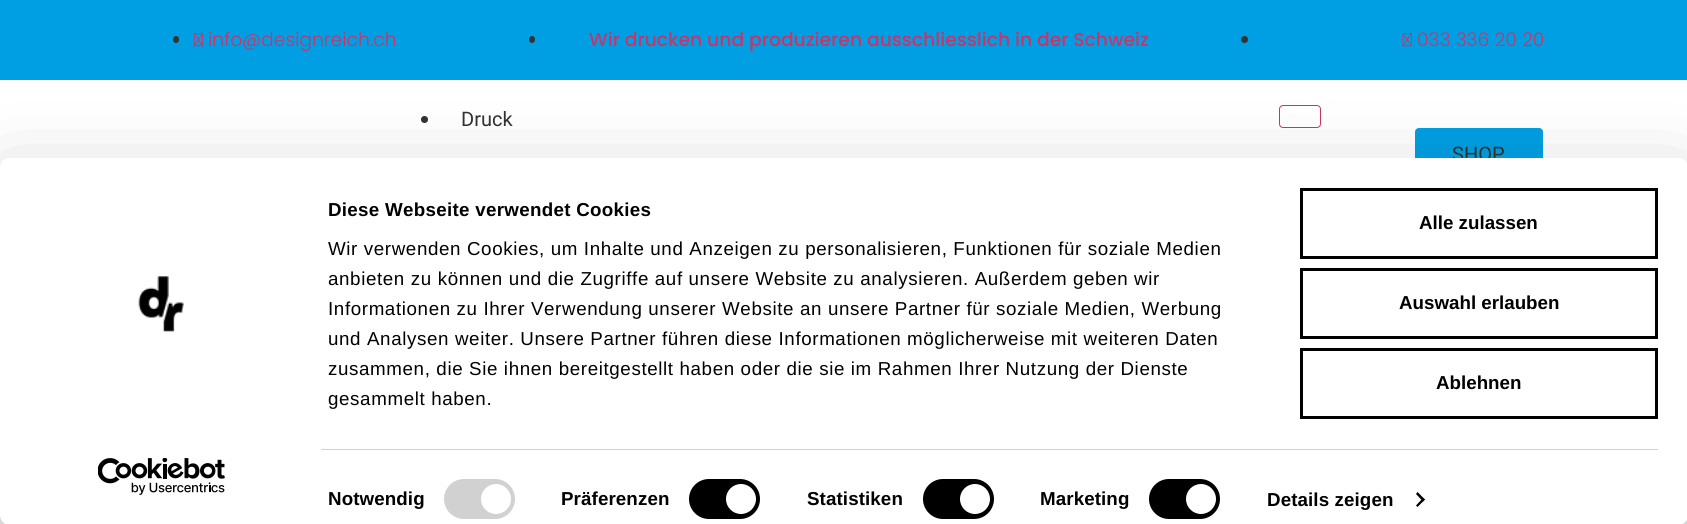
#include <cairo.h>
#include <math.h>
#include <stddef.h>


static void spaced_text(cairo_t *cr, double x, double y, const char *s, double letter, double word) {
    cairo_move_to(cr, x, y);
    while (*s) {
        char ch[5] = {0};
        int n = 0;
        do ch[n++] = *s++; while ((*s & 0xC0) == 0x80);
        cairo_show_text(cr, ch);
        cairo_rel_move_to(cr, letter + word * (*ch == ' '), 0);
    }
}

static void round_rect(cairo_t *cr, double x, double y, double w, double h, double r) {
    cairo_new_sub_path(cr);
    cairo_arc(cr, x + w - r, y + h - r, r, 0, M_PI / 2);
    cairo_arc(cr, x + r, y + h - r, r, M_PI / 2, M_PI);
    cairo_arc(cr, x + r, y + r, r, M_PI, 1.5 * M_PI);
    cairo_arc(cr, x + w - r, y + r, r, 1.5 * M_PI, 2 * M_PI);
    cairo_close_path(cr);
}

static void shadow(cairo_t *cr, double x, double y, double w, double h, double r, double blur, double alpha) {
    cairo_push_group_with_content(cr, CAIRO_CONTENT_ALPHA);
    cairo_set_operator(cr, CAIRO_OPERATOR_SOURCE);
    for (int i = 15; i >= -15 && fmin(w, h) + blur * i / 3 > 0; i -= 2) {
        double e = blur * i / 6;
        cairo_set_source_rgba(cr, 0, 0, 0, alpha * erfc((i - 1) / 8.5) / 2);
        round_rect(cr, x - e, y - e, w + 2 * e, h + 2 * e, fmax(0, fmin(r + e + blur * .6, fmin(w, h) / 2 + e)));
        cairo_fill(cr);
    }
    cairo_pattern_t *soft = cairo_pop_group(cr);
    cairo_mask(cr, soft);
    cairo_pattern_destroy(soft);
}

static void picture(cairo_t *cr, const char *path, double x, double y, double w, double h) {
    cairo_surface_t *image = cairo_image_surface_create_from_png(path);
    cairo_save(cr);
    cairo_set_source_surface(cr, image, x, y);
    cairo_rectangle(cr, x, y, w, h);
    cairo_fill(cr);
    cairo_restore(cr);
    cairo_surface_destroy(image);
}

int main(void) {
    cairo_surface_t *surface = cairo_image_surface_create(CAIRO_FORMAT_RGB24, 1687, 524);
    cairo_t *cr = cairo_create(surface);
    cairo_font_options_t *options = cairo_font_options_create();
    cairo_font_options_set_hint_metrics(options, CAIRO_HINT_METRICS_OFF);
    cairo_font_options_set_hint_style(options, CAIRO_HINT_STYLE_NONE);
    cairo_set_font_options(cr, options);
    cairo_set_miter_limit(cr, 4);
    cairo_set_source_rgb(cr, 1, 1, 1);
    cairo_paint(cr);
    cairo_set_source_rgb(cr, 0, 0.624, 0.89);
    cairo_rectangle(cr, 0, 0, 1687, 80);
    cairo_fill(cr);
    cairo_set_source_rgb(cr, 0.2, 0.2, 0.2);
    round_rect(cr, 173, 36, 6, 7, 3);
    cairo_fill(cr);
    picture(cr, "img1.png", 193, 33, 11, 14);
    cairo_select_font_face(cr, "Poppins Light", CAIRO_FONT_SLANT_NORMAL, CAIRO_FONT_WEIGHT_NORMAL);
    cairo_set_font_size(cr, 18.75);
    cairo_set_source_rgb(cr, 0.8, 0.2, 0.4);
    cairo_move_to(cr, 208, 46);
    cairo_show_text(cr, "info@designreich.ch");
    cairo_set_source_rgb(cr, 0.2, 0.2, 0.2);
    round_rect(cr, 529, 36, 6, 7, 3);
    cairo_fill(cr);
    cairo_select_font_face(cr, "Poppins Medium", CAIRO_FONT_SLANT_NORMAL, CAIRO_FONT_WEIGHT_NORMAL);
    cairo_set_source_rgb(cr, 0.8, 0.2, 0.4);
    cairo_move_to(cr, 589, 46);
    cairo_show_text(cr, "Wir drucken und produzieren ausschliesslich in der Schweiz");
    cairo_set_source_rgb(cr, 0.2, 0.2, 0.2);
    cairo_new_path(cr);
    cairo_arc(cr, 1244.5, 39.5, 3.5, 0, 2 * M_PI);
    cairo_fill(cr);
    picture(cr, "img2.png", 1402, 33, 10, 14);
    cairo_select_font_face(cr, "Poppins Light", CAIRO_FONT_SLANT_NORMAL, CAIRO_FONT_WEIGHT_NORMAL);
    cairo_set_source_rgb(cr, 0.8, 0.2, 0.4);
    cairo_move_to(cr, 1417, 46);
    cairo_show_text(cr, "033 336 20 20");
    cairo_set_source_rgb(cr, 0.2, 0.2, 0.2);
    cairo_new_path(cr);
    cairo_arc(cr, 424.5, 119.5, 3.5, 0, 2 * M_PI);
    cairo_fill(cr);
    cairo_select_font_face(cr, "Roboto", CAIRO_FONT_SLANT_NORMAL, CAIRO_FONT_WEIGHT_NORMAL);
    cairo_set_font_size(cr, 20);
    cairo_move_to(cr, 461, 126);
    cairo_show_text(cr, "Druck");
    round_rect(cr, 1279.5, 105.5, 41, 22, 3.5);
    cairo_set_source_rgb(cr, 0.8, 0.2, 0.4);
    cairo_set_line_width(cr, 1);
    cairo_stroke(cr);
    cairo_set_source_rgb(cr, 0, 0.624, 0.89);
    round_rect(cr, 1415, 128, 128, 55, 4);
    cairo_fill(cr);
    cairo_set_source_rgb(cr, 0.2, 0.2, 0.2);
    cairo_move_to(cr, 1452, 161);
    cairo_show_text(cr, "SHOP");
    cairo_set_source_rgb(cr, 0, 0, 0);
    shadow(cr, 0, 195, 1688, 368, 10, 44, 0.3);
    cairo_set_source_rgb(cr, 1, 1, 1);
    round_rect(cr, 0, 158, 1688, 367, 10);
    cairo_fill(cr);
    picture(cr, "img3.png", 138, 276, 46, 56);
    picture(cr, "img4.png", 98, 458, 127, 37);
    cairo_select_font_face(cr, "Liberation Sans", CAIRO_FONT_SLANT_NORMAL, CAIRO_FONT_WEIGHT_BOLD);
    cairo_set_font_size(cr, 18.75);
    cairo_set_source_rgb(cr, 0, 0, 0);
    spaced_text(cr, 328, 216, "Diese Webseite verwendet Cookies", 0.3, 0);
    cairo_select_font_face(cr, "Liberation Sans", CAIRO_FONT_SLANT_NORMAL, CAIRO_FONT_WEIGHT_NORMAL);
    spaced_text(cr, 328, 255, "Wir verwenden Cookies, um Inhalte und Anzeigen zu personalisieren, Funktionen für soziale Medien", 0.62, 0);
    spaced_text(cr, 328, 285, "anbieten zu können und die Zugriffe auf unsere Website zu analysieren. Außerdem geben wir", 0.62, 0);
    spaced_text(cr, 328, 315, "Informationen zu Ihrer Verwendung unserer Website an unsere Partner für soziale Medien, Werbung", 0.62, 0);
    spaced_text(cr, 328, 345, "und Analysen weiter. Unsere Partner führen diese Informationen möglicherweise mit weiteren Daten", 0.62, 0);
    spaced_text(cr, 328, 375, "zusammen, die Sie ihnen bereitgestellt haben oder die sie im Rahmen Ihrer Nutzung der Dienste", 0.62, 0);
    spaced_text(cr, 328, 405, "gesammelt haben.", 0.62, 0);
    cairo_set_source_rgb(cr, 0.82, 0.82, 0.82);
    cairo_rectangle(cr, 321, 449, 1337, 1);
    cairo_fill(cr);
    cairo_select_font_face(cr, "Liberation Sans", CAIRO_FONT_SLANT_NORMAL, CAIRO_FONT_WEIGHT_BOLD);
    cairo_set_source_rgb(cr, 0, 0, 0);
    spaced_text(cr, 328, 505, "Notwendig", 0.1, 0);
    cairo_set_source_rgb(cr, 0.82, 0.82, 0.82);
    round_rect(cr, 444, 479, 71, 40, 20);
    cairo_fill(cr);
    cairo_set_source_rgb(cr, 1, 1, 1);
    cairo_arc(cr, 496, 499, 15, 0, 2 * M_PI);
    cairo_fill(cr);
    cairo_set_source_rgb(cr, 0, 0, 0);
    spaced_text(cr, 561, 505, "Präferenzen", 0.1, 0);
    round_rect(cr, 689, 479, 71, 40, 20);
    cairo_fill(cr);
    cairo_set_source_rgb(cr, 1, 1, 1);
    cairo_arc(cr, 741, 499, 15, 0, 2 * M_PI);
    cairo_fill(cr);
    cairo_set_source_rgb(cr, 0, 0, 0);
    spaced_text(cr, 807, 505, "Statistiken", 0.1, 0);
    round_rect(cr, 923, 479, 71, 40, 20);
    cairo_fill(cr);
    cairo_set_source_rgb(cr, 1, 1, 1);
    cairo_arc(cr, 975, 499, 15, 0, 2 * M_PI);
    cairo_fill(cr);
    cairo_set_source_rgb(cr, 0, 0, 0);
    spaced_text(cr, 1040, 505, "Marketing", 0.1, 0);
    round_rect(cr, 1149, 479, 71, 40, 20);
    cairo_fill(cr);
    cairo_set_source_rgb(cr, 1, 1, 1);
    cairo_arc(cr, 1201, 499, 15, 0, 2 * M_PI);
    cairo_fill(cr);
    cairo_set_source_rgb(cr, 0, 0, 0);
    spaced_text(cr, 1267, 506, "Details zeigen", 0.1, 0);
    cairo_new_path(cr);
    cairo_move_to(cr, 1417.5, 492);
    cairo_line_to(cr, 1425, 499.5);
    cairo_line_to(cr, 1423, 501.5);
    cairo_line_to(cr, 1416, 494);
    cairo_close_path(cr);
    cairo_fill(cr);
    cairo_new_path(cr);
    cairo_move_to(cr, 1423, 498);
    cairo_line_to(cr, 1425, 499.5);
    cairo_line_to(cr, 1417.5, 507);
    cairo_line_to(cr, 1416, 505.5);
    cairo_close_path(cr);
    cairo_fill(cr);
    cairo_rectangle(cr, 1301.5, 189.5, 355, 68);
    cairo_set_line_width(cr, 3);
    cairo_stroke(cr);
    cairo_move_to(cr, 1419, 229);
    cairo_show_text(cr, "Alle zulassen");
    cairo_rectangle(cr, 1301.5, 269.5, 355, 68);
    cairo_stroke(cr);
    cairo_move_to(cr, 1399, 309);
    cairo_show_text(cr, "Auswahl erlauben");
    cairo_rectangle(cr, 1301.5, 349.5, 355, 68);
    cairo_stroke(cr);
    cairo_move_to(cr, 1436, 389);
    cairo_show_text(cr, "Ablehnen");
    cairo_surface_write_to_png(surface, "page.png");
    cairo_font_options_destroy(options);
    cairo_destroy(cr);
    cairo_surface_destroy(surface);
    return 0;
}
